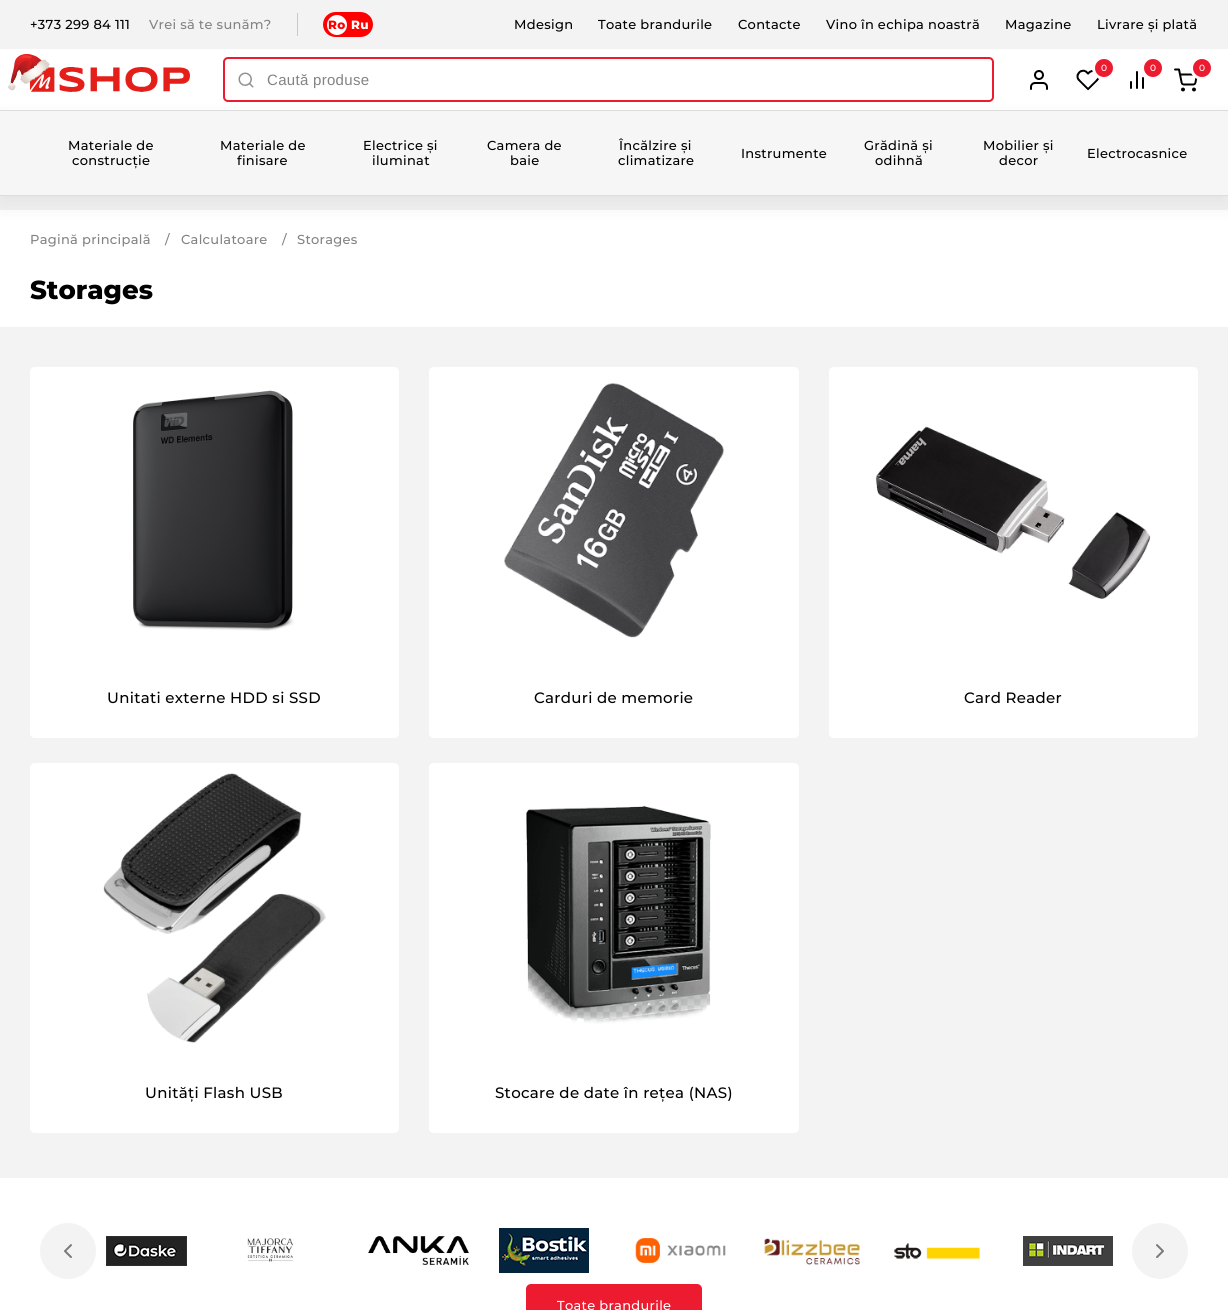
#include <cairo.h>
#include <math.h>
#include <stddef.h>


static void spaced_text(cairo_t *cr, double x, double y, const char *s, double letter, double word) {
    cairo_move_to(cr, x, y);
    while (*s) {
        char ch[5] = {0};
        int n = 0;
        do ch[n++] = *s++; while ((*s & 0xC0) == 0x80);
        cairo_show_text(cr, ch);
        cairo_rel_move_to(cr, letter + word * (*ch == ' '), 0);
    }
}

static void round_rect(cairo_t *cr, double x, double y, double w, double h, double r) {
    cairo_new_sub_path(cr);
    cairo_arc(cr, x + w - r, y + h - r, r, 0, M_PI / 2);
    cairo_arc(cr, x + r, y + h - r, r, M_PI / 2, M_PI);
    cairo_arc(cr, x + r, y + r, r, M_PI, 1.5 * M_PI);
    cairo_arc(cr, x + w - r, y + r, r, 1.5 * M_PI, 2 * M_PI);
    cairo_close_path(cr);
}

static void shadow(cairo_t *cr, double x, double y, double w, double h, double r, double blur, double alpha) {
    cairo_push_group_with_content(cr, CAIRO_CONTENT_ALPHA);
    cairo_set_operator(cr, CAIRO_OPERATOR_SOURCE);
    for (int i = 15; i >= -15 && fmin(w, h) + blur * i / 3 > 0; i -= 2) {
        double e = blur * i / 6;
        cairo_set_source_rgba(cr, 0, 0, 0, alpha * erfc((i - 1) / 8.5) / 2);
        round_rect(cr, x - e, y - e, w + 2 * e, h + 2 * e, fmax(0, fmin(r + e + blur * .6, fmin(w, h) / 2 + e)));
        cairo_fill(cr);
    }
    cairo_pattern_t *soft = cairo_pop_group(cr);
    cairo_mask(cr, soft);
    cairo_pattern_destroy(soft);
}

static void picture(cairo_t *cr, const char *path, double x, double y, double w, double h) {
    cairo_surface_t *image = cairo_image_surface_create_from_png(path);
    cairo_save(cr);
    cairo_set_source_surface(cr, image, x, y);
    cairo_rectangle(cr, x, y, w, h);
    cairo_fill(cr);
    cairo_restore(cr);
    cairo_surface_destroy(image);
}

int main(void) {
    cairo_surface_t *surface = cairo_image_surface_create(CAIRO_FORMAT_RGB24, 1228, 1310);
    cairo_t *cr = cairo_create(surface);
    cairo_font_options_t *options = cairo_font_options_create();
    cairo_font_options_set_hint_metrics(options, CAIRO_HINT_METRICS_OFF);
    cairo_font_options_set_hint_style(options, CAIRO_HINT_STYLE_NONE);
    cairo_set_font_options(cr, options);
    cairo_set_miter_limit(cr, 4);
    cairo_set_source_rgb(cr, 0.953, 0.953, 0.953);
    cairo_paint(cr);
    cairo_set_source_rgb(cr, 1, 1, 1);
    cairo_rectangle(cr, 0, 49, 1228, 61);
    cairo_fill(cr);
    cairo_set_source_rgb(cr, 0.788, 0.788, 0.788);
    cairo_rectangle(cr, 297, 13, 1, 23);
    cairo_fill(cr);
    cairo_select_font_face(cr, "Montserrat Medium", CAIRO_FONT_SLANT_NORMAL, CAIRO_FONT_WEIGHT_NORMAL);
    cairo_set_font_size(cr, 13);
    cairo_set_source_rgb(cr, 0, 0, 0);
    spaced_text(cr, 30, 29, "+373 299 84 111", 0.3, 0);
    cairo_set_source_rgb(cr, 0.514, 0.514, 0.514);
    spaced_text(cr, 149, 29, "Vrei să te sunăm?", 0.3, 0);
    cairo_set_source_rgb(cr, 1, 0, 0);
    round_rect(cr, 323, 12, 50, 25, 12.5);
    cairo_fill(cr);
    cairo_set_source_rgb(cr, 1, 1, 1);
    cairo_arc(cr, 337, 25, 10, 0, 2 * M_PI);
    cairo_fill(cr);
    cairo_select_font_face(cr, "Montserrat ExtraBold", CAIRO_FONT_SLANT_NORMAL, CAIRO_FONT_WEIGHT_NORMAL);
    cairo_set_font_size(cr, 12);
    cairo_set_source_rgb(cr, 1, 0, 0);
    spaced_text(cr, 328, 29, "Ro", 0.3, 0);
    cairo_set_source_rgb(cr, 1, 1, 1);
    spaced_text(cr, 351, 29, "Ru", 0.3, 0);
    cairo_select_font_face(cr, "Montserrat Medium", CAIRO_FONT_SLANT_NORMAL, CAIRO_FONT_WEIGHT_NORMAL);
    cairo_set_font_size(cr, 13);
    cairo_set_source_rgb(cr, 0, 0, 0);
    spaced_text(cr, 514, 29, "Mdesign", 0.3, 0);
    spaced_text(cr, 598, 29, "Toate brandurile", 0.3, 0);
    spaced_text(cr, 738, 29, "Contacte", 0.3, 0);
    spaced_text(cr, 826, 29, "Vino în echipa noastră", 0.3, 0);
    spaced_text(cr, 1005, 29, "Magazine", 0.3, 0);
    spaced_text(cr, 1097, 29, "Livrare și plată", 0.3, 0);
    cairo_set_source_rgb(cr, 0.878, 0.878, 0.878);
    cairo_rectangle(cr, 0, 110, 1228, 1);
    cairo_fill(cr);
    picture(cr, "img2.png", 30, 67, 160, 25);
    picture(cr, "img1.png", 8, 54, 42, 37);
    picture(cr, "img3.png", 1076, 69, 24, 22);
    cairo_set_source_rgb(cr, 0.929, 0.106, 0.184);
    cairo_arc(cr, 1104, 68, 10.5, 0, 2 * M_PI);
    cairo_fill_preserve(cr);
    cairo_set_source_rgb(cr, 1, 1, 1);
    cairo_set_line_width(cr, 3);
    cairo_stroke(cr);
    cairo_set_font_size(cr, 9);
    spaced_text(cr, 1101, 71, "0", 0.3, 0);
    picture(cr, "img4.png", 1130, 71, 14, 18);
    cairo_set_source_rgb(cr, 0.929, 0.106, 0.184);
    cairo_arc(cr, 1153, 68, 10.5, 0, 2 * M_PI);
    cairo_fill_preserve(cr);
    cairo_set_source_rgb(cr, 1, 1, 1);
    cairo_stroke(cr);
    spaced_text(cr, 1150, 71, "0", 0.3, 0);
    picture(cr, "img5.png", 1174, 68, 24, 24);
    cairo_set_source_rgb(cr, 0.929, 0.106, 0.184);
    cairo_arc(cr, 1202, 68, 10.5, 0, 2 * M_PI);
    cairo_fill_preserve(cr);
    cairo_set_source_rgb(cr, 1, 1, 1);
    cairo_stroke(cr);
    spaced_text(cr, 1199, 71, "0", 0.3, 0);
    picture(cr, "img6.png", 1030, 70, 18, 20);
    cairo_rectangle(cr, 0, 210, 1228, 117);
    cairo_fill(cr);
    cairo_set_source_rgb(cr, 0.067, 0.055, 0.106);
    shadow(cr, 0, 119, 1228, 85, 0, 11, 0.08);
    round_rect(cr, 224, 58, 769, 43, 4);
    cairo_set_source_rgb(cr, 0.929, 0.106, 0.184);
    cairo_set_line_width(cr, 2);
    cairo_stroke(cr);
    picture(cr, "img7.png", 238, 72, 16, 16);
    cairo_select_font_face(cr, "Liberation Sans", CAIRO_FONT_SLANT_NORMAL, CAIRO_FONT_WEIGHT_NORMAL);
    cairo_set_font_size(cr, 15);
    cairo_set_source_rgb(cr, 0.514, 0.514, 0.514);
    spaced_text(cr, 267, 85, "Caută produse", 0.3, 0);
    cairo_set_source_rgb(cr, 0.961, 0.961, 0.961);
    cairo_rectangle(cr, 0, 111, 1228, 84);
    cairo_fill(cr);
    cairo_set_source_rgb(cr, 0.867, 0.867, 0.867);
    cairo_rectangle(cr, 0, 195, 1228, 1);
    cairo_fill(cr);
    cairo_select_font_face(cr, "Montserrat Medium", CAIRO_FONT_SLANT_NORMAL, CAIRO_FONT_WEIGHT_NORMAL);
    cairo_set_font_size(cr, 13);
    cairo_set_source_rgb(cr, 0, 0, 0);
    spaced_text(cr, 68, 150, "Materiale de", 0.3, 0);
    spaced_text(cr, 72, 165, "construcție", 0.3, 0);
    spaced_text(cr, 220, 150, "Materiale de", 0.3, 0);
    spaced_text(cr, 237, 165, "finisare", 0.3, 0);
    spaced_text(cr, 363, 150, "Electrice și", 0.3, 0);
    spaced_text(cr, 372, 165, "iluminat", 0.3, 0);
    spaced_text(cr, 487, 150, "Camera de", 0.3, 0);
    spaced_text(cr, 510, 165, "baie", 0.3, 0);
    spaced_text(cr, 619, 150, "Încălzire și", 0.3, 0);
    spaced_text(cr, 618, 165, "climatizare", 0.3, 0);
    spaced_text(cr, 741, 158, "Instrumente", 0.3, 0);
    spaced_text(cr, 864, 150, "Grădină și", 0.3, 0);
    spaced_text(cr, 875, 165, "odihnă", 0.3, 0);
    spaced_text(cr, 983, 150, "Mobilier și", 0.3, 0);
    spaced_text(cr, 999, 165, "decor", 0.3, 0);
    spaced_text(cr, 1087, 158, "Electrocasnice", 0.3, 0);
    cairo_set_source_rgb(cr, 0.514, 0.514, 0.514);
    spaced_text(cr, 30, 244, "Pagină principală", 0.3, 0);
    spaced_text(cr, 165, 244, "/", 0.3, 0);
    spaced_text(cr, 181, 244, "Calculatoare", 0.3, 0);
    spaced_text(cr, 282, 244, "/", 0.3, 0);
    spaced_text(cr, 297, 244, "Storages", 0.3, 0);
    cairo_select_font_face(cr, "Montserrat ExtraBold", CAIRO_FONT_SLANT_NORMAL, CAIRO_FONT_WEIGHT_NORMAL);
    cairo_set_font_size(cr, 26);
    cairo_set_source_rgb(cr, 0, 0, 0);
    cairo_move_to(cr, 30, 299);
    cairo_show_text(cr, "Storages");
    cairo_set_source_rgb(cr, 1, 1, 1);
    cairo_new_path(cr);
    cairo_move_to(cr, 35, 367);
    cairo_line_to(cr, 394, 367);
    cairo_curve_to(cr, 397, 367, 399, 369, 399, 372);
    cairo_line_to(cr, 399, 657);
    cairo_line_to(cr, 30, 657);
    cairo_line_to(cr, 30, 372);
    cairo_curve_to(cr, 30, 369, 32, 367, 35, 367);
    cairo_close_path(cr);
    cairo_fill(cr);
    picture(cr, "img8.png", 133, 390, 161, 241);
    cairo_new_path(cr);
    cairo_move_to(cr, 30, 657);
    cairo_line_to(cr, 399, 657);
    cairo_line_to(cr, 399, 733);
    cairo_curve_to(cr, 399, 736, 397, 738, 394, 738);
    cairo_line_to(cr, 35, 738);
    cairo_curve_to(cr, 32, 738, 30, 736, 30, 733);
    cairo_close_path(cr);
    cairo_fill(cr);
    cairo_select_font_face(cr, "Montserrat Medium", CAIRO_FONT_SLANT_NORMAL, CAIRO_FONT_WEIGHT_NORMAL);
    cairo_set_font_size(cr, 15);
    cairo_set_source_rgb(cr, 0, 0, 0);
    spaced_text(cr, 107, 703, "Unitati externe HDD si SSD", 0.3, 0);
    cairo_set_source_rgb(cr, 1, 1, 1);
    cairo_new_path(cr);
    cairo_move_to(cr, 434, 367);
    cairo_line_to(cr, 794, 367);
    cairo_curve_to(cr, 797, 367, 799, 369, 799, 372);
    cairo_line_to(cr, 799, 657);
    cairo_line_to(cr, 429, 657);
    cairo_line_to(cr, 429, 372);
    cairo_curve_to(cr, 429, 369, 431, 367, 434, 367);
    cairo_close_path(cr);
    cairo_fill(cr);
    picture(cr, "img9.png", 504, 383, 220, 255);
    cairo_new_path(cr);
    cairo_move_to(cr, 429, 657);
    cairo_line_to(cr, 799, 657);
    cairo_line_to(cr, 799, 733);
    cairo_curve_to(cr, 799, 736, 797, 738, 794, 738);
    cairo_line_to(cr, 434, 738);
    cairo_curve_to(cr, 431, 738, 429, 736, 429, 733);
    cairo_close_path(cr);
    cairo_fill(cr);
    cairo_set_source_rgb(cr, 0, 0, 0);
    spaced_text(cr, 534, 703, "Carduri de memorie", 0.3, 0);
    cairo_set_source_rgb(cr, 1, 1, 1);
    cairo_new_path(cr);
    cairo_move_to(cr, 834, 367);
    cairo_line_to(cr, 1193, 367);
    cairo_curve_to(cr, 1196, 367, 1198, 369, 1198, 372);
    cairo_line_to(cr, 1198, 657);
    cairo_line_to(cr, 829, 657);
    cairo_line_to(cr, 829, 372);
    cairo_curve_to(cr, 829, 369, 831, 367, 834, 367);
    cairo_close_path(cr);
    cairo_fill(cr);
    picture(cr, "img10.png", 875, 426, 276, 173);
    cairo_new_path(cr);
    cairo_move_to(cr, 829, 657);
    cairo_line_to(cr, 1198, 657);
    cairo_line_to(cr, 1198, 733);
    cairo_curve_to(cr, 1198, 736, 1196, 738, 1193, 738);
    cairo_line_to(cr, 834, 738);
    cairo_curve_to(cr, 831, 738, 829, 736, 829, 733);
    cairo_close_path(cr);
    cairo_fill(cr);
    cairo_set_source_rgb(cr, 0, 0, 0);
    spaced_text(cr, 964, 703, "Card Reader", 0.3, 0);
    cairo_set_source_rgb(cr, 1, 1, 1);
    cairo_new_path(cr);
    cairo_move_to(cr, 35, 763);
    cairo_line_to(cr, 394, 763);
    cairo_curve_to(cr, 397, 763, 399, 765, 399, 768);
    cairo_line_to(cr, 399, 1053);
    cairo_line_to(cr, 30, 1053);
    cairo_line_to(cr, 30, 768);
    cairo_curve_to(cr, 30, 765, 32, 763, 35, 763);
    cairo_close_path(cr);
    cairo_fill(cr);
    picture(cr, "img11.png", 103, 773, 223, 270);
    cairo_new_path(cr);
    cairo_move_to(cr, 30, 1053);
    cairo_line_to(cr, 399, 1053);
    cairo_line_to(cr, 399, 1128);
    cairo_curve_to(cr, 399, 1131, 397, 1133, 394, 1133);
    cairo_line_to(cr, 35, 1133);
    cairo_curve_to(cr, 32, 1133, 30, 1131, 30, 1128);
    cairo_close_path(cr);
    cairo_fill(cr);
    cairo_set_source_rgb(cr, 0, 0, 0);
    spaced_text(cr, 145, 1098, "Unități Flash USB", 0.3, 0);
    cairo_set_source_rgb(cr, 1, 1, 1);
    cairo_new_path(cr);
    cairo_move_to(cr, 434, 763);
    cairo_line_to(cr, 794, 763);
    cairo_curve_to(cr, 797, 763, 799, 765, 799, 768);
    cairo_line_to(cr, 799, 1053);
    cairo_line_to(cr, 429, 1053);
    cairo_line_to(cr, 429, 768);
    cairo_curve_to(cr, 429, 765, 431, 763, 434, 763);
    cairo_close_path(cr);
    cairo_fill(cr);
    picture(cr, "img12.png", 526, 806, 185, 218);
    cairo_new_path(cr);
    cairo_move_to(cr, 429, 1053);
    cairo_line_to(cr, 799, 1053);
    cairo_line_to(cr, 799, 1128);
    cairo_curve_to(cr, 799, 1131, 797, 1133, 794, 1133);
    cairo_line_to(cr, 434, 1133);
    cairo_curve_to(cr, 431, 1133, 429, 1131, 429, 1128);
    cairo_close_path(cr);
    cairo_fill(cr);
    cairo_set_source_rgb(cr, 0, 0, 0);
    spaced_text(cr, 495, 1098, "Stocare de date în rețea (NAS)", 0.3, 0);
    cairo_set_source_rgb(cr, 1, 1, 1);
    cairo_rectangle(cr, 0, 1178, 1228, 132);
    cairo_fill(cr);
    cairo_set_source_rgb(cr, 0.953, 0.953, 0.953);
    cairo_arc(cr, 68, 1251, 28, 0, 2 * M_PI);
    cairo_fill(cr);
    picture(cr, "img13.png", 64, 1244, 8, 14);
    picture(cr, "img14.png", 106, 1236, 81, 30);
    picture(cr, "img15.png", 247, 1238, 47, 24);
    picture(cr, "img16.png", 368, 1236, 101, 29);
    picture(cr, "img17.png", 499, 1228, 90, 45);
    picture(cr, "img18.png", 635, 1238, 91, 26);
    picture(cr, "img19.png", 764, 1238, 96, 27);
    picture(cr, "img20.png", 894, 1243, 86, 16);
    picture(cr, "img21.png", 1023, 1236, 90, 30);
    cairo_arc(cr, 1160, 1251, 28, 0, 2 * M_PI);
    cairo_fill(cr);
    picture(cr, "img22.png", 1156, 1244, 8, 14);
    cairo_set_source_rgb(cr, 0.929, 0.106, 0.184);
    round_rect(cr, 526, 1284, 176, 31, 5);
    cairo_fill(cr);
    cairo_set_font_size(cr, 13);
    cairo_set_source_rgb(cr, 1, 1, 1);
    spaced_text(cr, 557, 1310, "Toate brandurile", 0.3, 0);
    cairo_surface_write_to_png(surface, "page.png");
    cairo_font_options_destroy(options);
    cairo_destroy(cr);
    cairo_surface_destroy(surface);
    return 0;
}
